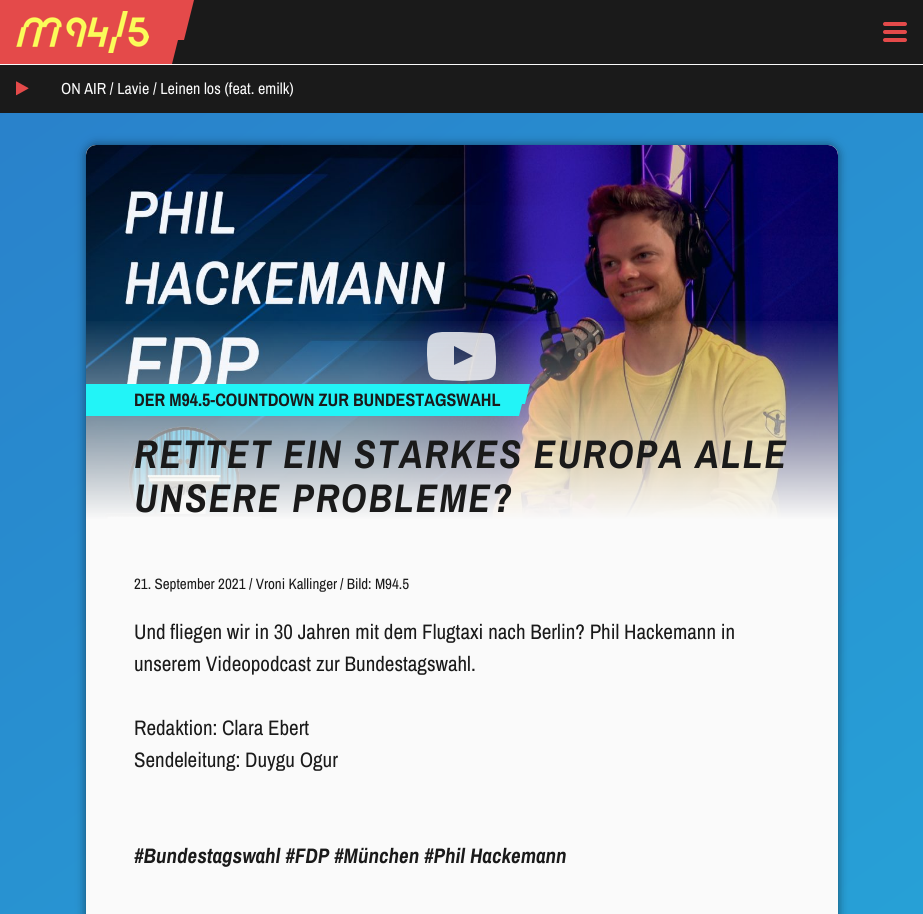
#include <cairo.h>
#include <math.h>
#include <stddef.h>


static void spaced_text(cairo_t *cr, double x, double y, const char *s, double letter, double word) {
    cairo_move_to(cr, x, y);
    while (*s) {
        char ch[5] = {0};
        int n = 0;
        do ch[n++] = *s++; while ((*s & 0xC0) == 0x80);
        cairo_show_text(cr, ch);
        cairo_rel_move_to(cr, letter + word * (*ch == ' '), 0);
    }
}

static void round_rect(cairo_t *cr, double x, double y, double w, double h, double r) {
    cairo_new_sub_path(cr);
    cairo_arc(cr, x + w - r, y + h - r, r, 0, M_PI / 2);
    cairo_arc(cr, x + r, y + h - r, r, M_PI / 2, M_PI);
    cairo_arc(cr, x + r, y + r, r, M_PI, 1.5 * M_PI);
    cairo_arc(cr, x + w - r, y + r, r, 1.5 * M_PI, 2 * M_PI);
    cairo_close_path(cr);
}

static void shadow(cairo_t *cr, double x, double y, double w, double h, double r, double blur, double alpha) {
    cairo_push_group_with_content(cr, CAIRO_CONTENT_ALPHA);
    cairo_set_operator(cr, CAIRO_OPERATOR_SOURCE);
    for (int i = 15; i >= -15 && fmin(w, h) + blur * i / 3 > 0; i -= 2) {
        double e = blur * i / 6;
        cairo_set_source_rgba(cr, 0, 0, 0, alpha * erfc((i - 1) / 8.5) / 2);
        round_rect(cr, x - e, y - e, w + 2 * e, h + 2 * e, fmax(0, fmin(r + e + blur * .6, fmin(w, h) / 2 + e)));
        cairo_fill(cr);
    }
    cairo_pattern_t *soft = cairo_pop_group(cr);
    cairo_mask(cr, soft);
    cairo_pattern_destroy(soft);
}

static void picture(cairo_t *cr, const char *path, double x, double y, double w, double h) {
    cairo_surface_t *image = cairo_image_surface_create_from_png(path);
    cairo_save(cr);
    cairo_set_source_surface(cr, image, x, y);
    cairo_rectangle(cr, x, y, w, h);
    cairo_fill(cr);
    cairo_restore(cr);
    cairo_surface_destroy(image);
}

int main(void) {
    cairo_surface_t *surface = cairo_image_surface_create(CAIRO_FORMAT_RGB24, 923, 914);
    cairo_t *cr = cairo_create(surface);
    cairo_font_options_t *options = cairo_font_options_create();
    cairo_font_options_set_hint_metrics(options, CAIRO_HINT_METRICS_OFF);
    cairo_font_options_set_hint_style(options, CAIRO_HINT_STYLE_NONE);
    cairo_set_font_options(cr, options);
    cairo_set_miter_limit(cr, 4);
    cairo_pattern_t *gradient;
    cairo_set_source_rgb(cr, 1, 1, 1);
    cairo_paint(cr);
    gradient = cairo_pattern_create_linear(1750, 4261, -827, 579);
    cairo_pattern_add_color_stop_rgba(gradient, 0, 0.133, 0.957, 0.965, 1);
    cairo_pattern_add_color_stop_rgba(gradient, 1, 0.161, 0.498, 0.792, 1);
    cairo_set_source(cr, gradient);
    cairo_pattern_destroy(gradient);
    cairo_rectangle(cr, 0, 113, 923, 801);
    cairo_fill(cr);
    cairo_set_source_rgb(cr, 0.102, 0.102, 0.102);
    cairo_rectangle(cr, 172, 0, 751, 64);
    cairo_fill(cr);
    cairo_set_source_rgb(cr, 0.98, 0.98, 0.98);
    cairo_rectangle(cr, 0, 64, 923, 1);
    cairo_fill(cr);
    cairo_set_source_rgb(cr, 0.894, 0.29, 0.29);
    cairo_rectangle(cr, 0, 0, 164, 64);
    cairo_fill(cr);
    picture(cr, "img1.png", 16, 11, 133, 42);
    cairo_set_fill_rule(cr, CAIRO_FILL_RULE_EVEN_ODD);
    cairo_new_path(cr);
    cairo_move_to(cr, 187, 0);
    cairo_line_to(cr, 194, 0);
    cairo_line_to(cr, 184, 40);
    cairo_line_to(cr, 178, 40);
    cairo_line_to(cr, 172, 64);
    cairo_line_to(cr, 164, 64);
    cairo_line_to(cr, 164, 0);
    cairo_close_path(cr);
    cairo_fill(cr);
    round_rect(cr, 883, 30, 24, 4, 2);
    cairo_fill(cr);
    round_rect(cr, 883, 22, 24, 4, 2);
    cairo_fill(cr);
    round_rect(cr, 883, 38, 24, 4, 2);
    cairo_fill(cr);
    cairo_set_source_rgb(cr, 0.102, 0.102, 0.102);
    cairo_rectangle(cr, 0, 65, 923, 48);
    cairo_fill(cr);
    picture(cr, "img2.png", 16, 81, 13, 15);
    cairo_select_font_face(cr, "Archivo Narrow", CAIRO_FONT_SLANT_NORMAL, CAIRO_FONT_WEIGHT_NORMAL);
    cairo_set_font_size(cr, 16);
    cairo_set_source_rgb(cr, 0.98, 0.98, 0.98);
    cairo_move_to(cr, 61, 94);
    cairo_show_text(cr, "ON AIR / Lavie / Leinen los (feat. emilk)");
    cairo_set_source_rgb(cr, 0, 0, 0);
    shadow(cr, 86, 145, 752, 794, 10, 5, 0.5);
    cairo_set_source_rgb(cr, 0.98, 0.98, 0.98);
    round_rect(cr, 86, 145, 752, 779, 10);
    cairo_fill(cr);
    picture(cr, "img3.png", 86, 145, 752, 374);
    cairo_set_source_rgba(cr, 1, 1, 1, 0.8);
    cairo_set_fill_rule(cr, CAIRO_FILL_RULE_WINDING);
    cairo_new_path(cr);
    cairo_move_to(cr, 454, 365);
    cairo_line_to(cr, 473, 356);
    cairo_line_to(cr, 454, 346);
    cairo_close_path(cr);
    cairo_move_to(cr, 462, 332);
    cairo_line_to(cr, 482, 333);
    cairo_curve_to(cr, 490, 333, 494, 334, 495, 344);
    cairo_line_to(cr, 496, 357);
    cairo_curve_to(cr, 496, 375, 496, 379, 481, 380);
    cairo_line_to(cr, 462, 381);
    cairo_line_to(cr, 442, 380);
    cairo_curve_to(cr, 433, 380, 429, 378, 428, 369);
    cairo_line_to(cr, 427, 355);
    cairo_curve_to(cr, 427, 338, 427, 333, 442, 332);
    cairo_close_path(cr);
    cairo_fill(cr);
    gradient = cairo_pattern_create_linear(462, 317, 462, 571);
    cairo_pattern_add_color_stop_rgba(gradient, 0, 0.98, 0.98, 0.98, 0);
    cairo_pattern_add_color_stop_rgba(gradient, 0.8, 0.98, 0.98, 0.98, 1);
    cairo_set_source(cr, gradient);
    cairo_pattern_destroy(gradient);
    cairo_rectangle(cr, 86, 321, 752, 198);
    cairo_fill(cr);
    cairo_set_source_rgb(cr, 0.133, 0.957, 0.965);
    cairo_rectangle(cr, 86, 384, 429, 32);
    cairo_fill(cr);
    cairo_select_font_face(cr, "Archivo Narrow", CAIRO_FONT_SLANT_NORMAL, CAIRO_FONT_WEIGHT_BOLD);
    cairo_set_font_size(cr, 18);
    cairo_set_source_rgb(cr, 0.102, 0.102, 0.102);
    cairo_move_to(cr, 134, 406);
    cairo_show_text(cr, "DER M94.5-COUNTDOWN ZUR BUNDESTAGSWAHL");
    cairo_set_source_rgb(cr, 0.133, 0.957, 0.965);
    cairo_set_fill_rule(cr, CAIRO_FILL_RULE_EVEN_ODD);
    cairo_new_path(cr);
    cairo_move_to(cr, 526.5, 384);
    cairo_line_to(cr, 530, 384);
    cairo_line_to(cr, 525, 404);
    cairo_line_to(cr, 522, 404);
    cairo_line_to(cr, 519, 416);
    cairo_line_to(cr, 515, 416);
    cairo_line_to(cr, 515, 384);
    cairo_close_path(cr);
    cairo_fill(cr);
    cairo_select_font_face(cr, "Archivo Narrow", CAIRO_FONT_SLANT_ITALIC, CAIRO_FONT_WEIGHT_BOLD);
    cairo_set_font_size(cr, 40);
    cairo_set_source_rgb(cr, 0.102, 0.102, 0.102);
    spaced_text(cr, 134, 468, "RETTET EIN STARKES EUROPA ALLE", 1.75, 0);
    spaced_text(cr, 134, 512, "UNSERE PROBLEME?", 1.75, 0);
    cairo_select_font_face(cr, "Archivo Narrow", CAIRO_FONT_SLANT_NORMAL, CAIRO_FONT_WEIGHT_NORMAL);
    cairo_set_font_size(cr, 15);
    cairo_move_to(cr, 134, 589);
    cairo_show_text(cr, "21. September 2021 / Vroni Kallinger");
    cairo_move_to(cr, 340, 589);
    cairo_show_text(cr, "/ Bild: M94.5");
    cairo_set_font_size(cr, 21);
    cairo_move_to(cr, 134, 639);
    cairo_show_text(cr, "Und fliegen wir in 30 Jahren mit dem Flugtaxi nach Berlin? Phil Hackemann in");
    cairo_move_to(cr, 134, 671);
    cairo_show_text(cr, "unserem Videopodcast zur Bundestagswahl.");
    cairo_move_to(cr, 134, 735);
    cairo_show_text(cr, "Redaktion: Clara Ebert");
    cairo_move_to(cr, 134, 767);
    cairo_show_text(cr, "Sendeleitung: Duygu Ogur");
    cairo_select_font_face(cr, "Archivo Narrow", CAIRO_FONT_SLANT_ITALIC, CAIRO_FONT_WEIGHT_BOLD);
    cairo_move_to(cr, 134, 863);
    cairo_show_text(cr, "#Bundestagswahl #FDP #München #Phil Hackemann");
    cairo_surface_write_to_png(surface, "page.png");
    cairo_font_options_destroy(options);
    cairo_destroy(cr);
    cairo_surface_destroy(surface);
    return 0;
}
